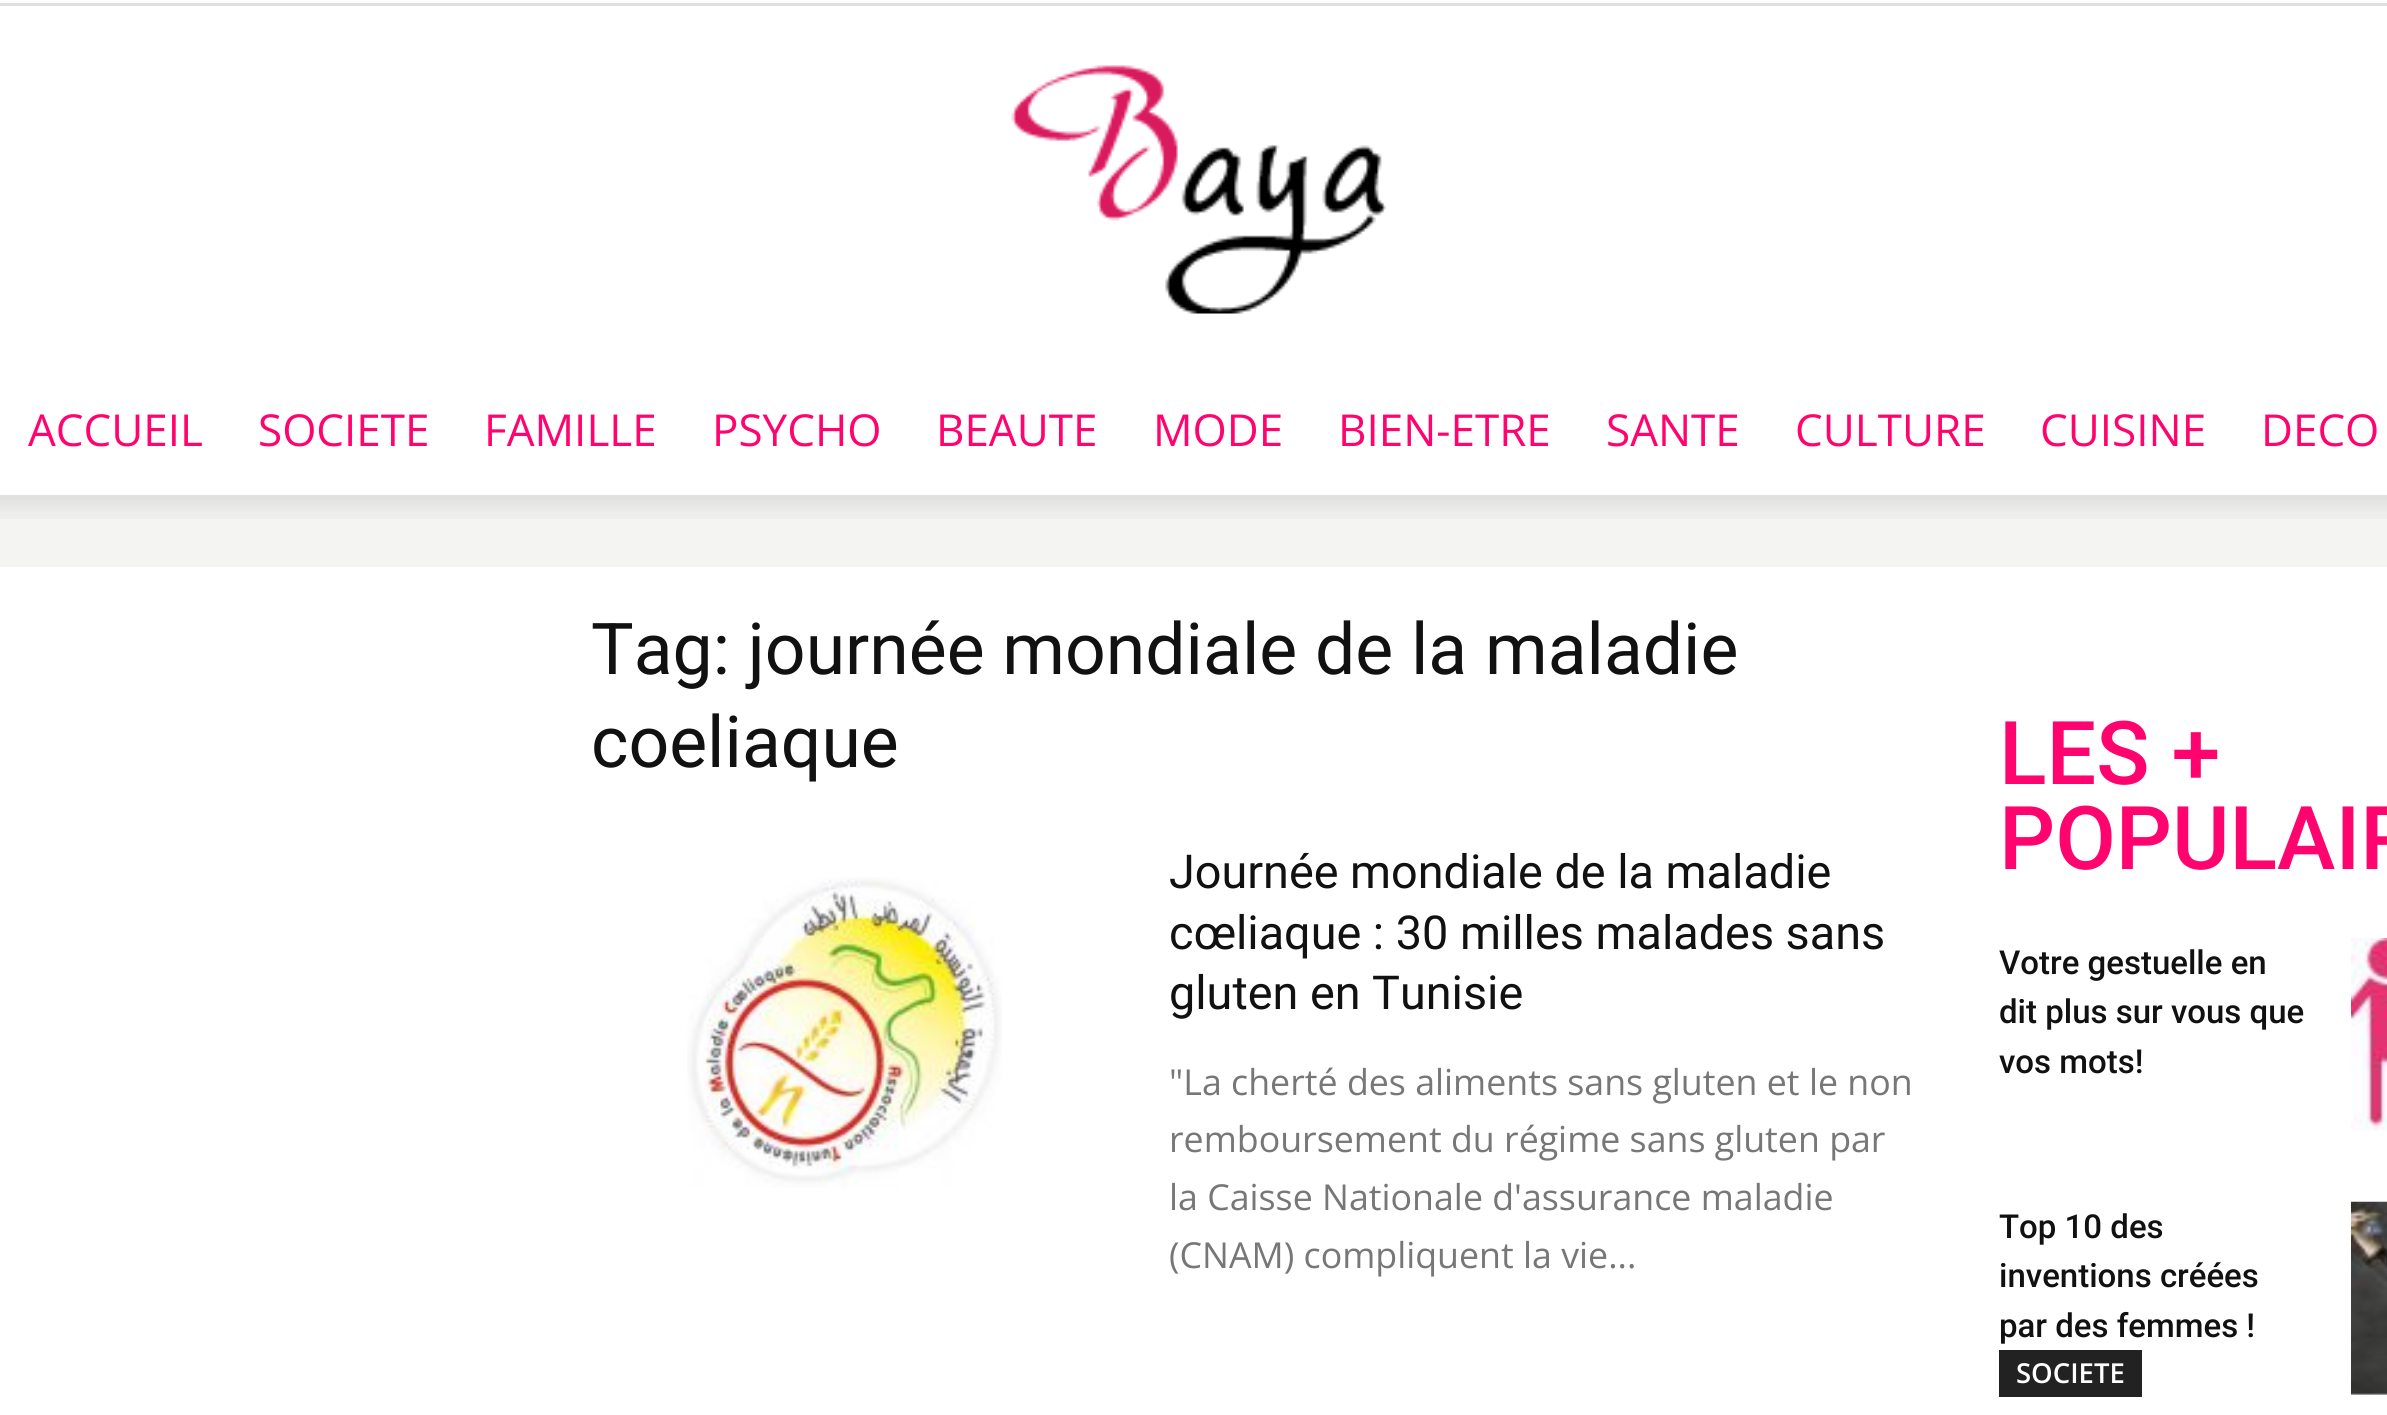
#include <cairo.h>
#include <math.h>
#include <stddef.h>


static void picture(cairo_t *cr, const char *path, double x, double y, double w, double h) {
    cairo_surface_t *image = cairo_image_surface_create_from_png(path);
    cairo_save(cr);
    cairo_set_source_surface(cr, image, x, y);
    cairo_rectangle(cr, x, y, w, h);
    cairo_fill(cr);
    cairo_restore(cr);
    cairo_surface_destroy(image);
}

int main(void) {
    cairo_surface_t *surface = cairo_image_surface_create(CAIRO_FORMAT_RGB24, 2387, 1415);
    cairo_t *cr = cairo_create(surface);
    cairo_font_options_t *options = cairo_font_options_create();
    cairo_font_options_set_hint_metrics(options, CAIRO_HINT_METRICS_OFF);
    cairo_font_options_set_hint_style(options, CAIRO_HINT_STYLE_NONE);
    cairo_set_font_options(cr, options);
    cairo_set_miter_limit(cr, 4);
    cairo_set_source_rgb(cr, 0.957, 0.957, 0.949);
    cairo_paint(cr);
    cairo_set_source_rgb(cr, 1, 1, 1);
    cairo_rectangle(cr, 0, 0, 2387, 495);
    cairo_fill(cr);
    cairo_set_source_rgb(cr, 0.878, 0.878, 0.878);
    cairo_rectangle(cr, 0, 3, 2387, 3);
    cairo_fill(cr);
    picture(cr, "img1.png", 1011, 65, 375, 249);
    cairo_select_font_face(cr, "Open Sans", CAIRO_FONT_SLANT_NORMAL, CAIRO_FONT_WEIGHT_NORMAL);
    cairo_set_font_size(cr, 44);
    cairo_set_source_rgb(cr, 1, 0.012, 0.431);
    cairo_move_to(cr, 28, 446);
    cairo_show_text(cr, "ACCUEIL");
    cairo_move_to(cr, 258, 446);
    cairo_show_text(cr, "SOCIETE");
    cairo_move_to(cr, 484, 446);
    cairo_show_text(cr, "FAMILLE");
    cairo_move_to(cr, 712, 446);
    cairo_show_text(cr, "PSYCHO");
    cairo_move_to(cr, 936, 446);
    cairo_show_text(cr, "BEAUTE");
    cairo_move_to(cr, 1153, 446);
    cairo_show_text(cr, "MODE");
    cairo_move_to(cr, 1338, 446);
    cairo_show_text(cr, "BIEN-ETRE");
    cairo_move_to(cr, 1606, 446);
    cairo_show_text(cr, "SANTE");
    cairo_move_to(cr, 1795, 446);
    cairo_show_text(cr, "CULTURE");
    cairo_move_to(cr, 2040, 446);
    cairo_show_text(cr, "CUISINE");
    cairo_move_to(cr, 2261, 446);
    cairo_show_text(cr, "DECO");
    picture(cr, "img2.png", 0, 495, 2387, 24);
    cairo_set_source_rgb(cr, 1, 1, 1);
    cairo_rectangle(cr, 0, 567, 2387, 848);
    cairo_fill(cr);
    cairo_select_font_face(cr, "Roboto", CAIRO_FONT_SLANT_NORMAL, CAIRO_FONT_WEIGHT_NORMAL);
    cairo_set_font_size(cr, 71.5);
    cairo_set_source_rgb(cr, 0.067, 0.067, 0.067);
    cairo_move_to(cr, 591, 674);
    cairo_show_text(cr, "Tag: journée mondiale de la maladie");
    cairo_move_to(cr, 591, 767);
    cairo_show_text(cr, "coeliaque");
    picture(cr, "img3.png", 687, 877, 315, 311);
    cairo_set_font_size(cr, 46.75);
    cairo_move_to(cr, 1169, 888);
    cairo_show_text(cr, "Journée mondiale de la maladie");
    cairo_move_to(cr, 1169, 949);
    cairo_show_text(cr, "cœliaque : 30 milles malades sans");
    cairo_move_to(cr, 1169, 1009);
    cairo_show_text(cr, "gluten en Tunisie");
    cairo_select_font_face(cr, "Open Sans", CAIRO_FONT_SLANT_NORMAL, CAIRO_FONT_WEIGHT_NORMAL);
    cairo_set_font_size(cr, 35.75);
    cairo_set_source_rgb(cr, 0.467, 0.467, 0.467);
    cairo_move_to(cr, 1169, 1095);
    cairo_show_text(cr, "\"La cherté des aliments sans gluten et le non");
    cairo_move_to(cr, 1169, 1152);
    cairo_show_text(cr, "remboursement du régime sans gluten par");
    cairo_move_to(cr, 1169, 1210);
    cairo_show_text(cr, "la Caisse Nationale d'assurance maladie");
    cairo_move_to(cr, 1169, 1268);
    cairo_show_text(cr, "(CNAM) compliquent la vie...");
    cairo_select_font_face(cr, "Roboto Medium", CAIRO_FONT_SLANT_NORMAL, CAIRO_FONT_WEIGHT_NORMAL);
    cairo_set_font_size(cr, 88);
    cairo_set_source_rgb(cr, 1, 0.012, 0.431);
    cairo_move_to(cr, 1999, 784);
    cairo_show_text(cr, "LES +");
    cairo_move_to(cr, 1999, 869);
    cairo_show_text(cr, "POPULAIR");
    cairo_set_font_size(cr, 33);
    cairo_set_source_rgb(cr, 0.067, 0.067, 0.067);
    cairo_move_to(cr, 1999, 974);
    cairo_show_text(cr, "Votre gestuelle en");
    cairo_move_to(cr, 1999, 1023);
    cairo_show_text(cr, "dit plus sur vous que");
    cairo_move_to(cr, 1999, 1073);
    cairo_show_text(cr, "vos mots!");
    picture(cr, "img4.png", 2351, 938, 36, 193);
    cairo_move_to(cr, 1999, 1238);
    cairo_show_text(cr, "Top 10 des");
    cairo_move_to(cr, 1999, 1287);
    cairo_show_text(cr, "inventions créées");
    cairo_move_to(cr, 1999, 1337);
    cairo_show_text(cr, "par des femmes !");
    cairo_set_source_rgb(cr, 0.133, 0.133, 0.133);
    cairo_rectangle(cr, 1999, 1350, 143, 47);
    cairo_fill(cr);
    cairo_select_font_face(cr, "Open Sans SemiBold", CAIRO_FONT_SLANT_NORMAL, CAIRO_FONT_WEIGHT_NORMAL);
    cairo_set_font_size(cr, 27.5);
    cairo_set_source_rgb(cr, 1, 1, 1);
    cairo_move_to(cr, 2016, 1383);
    cairo_show_text(cr, "SOCIETE");
    picture(cr, "img5.png", 2351, 1201, 36, 194);
    cairo_surface_write_to_png(surface, "page.png");
    cairo_font_options_destroy(options);
    cairo_destroy(cr);
    cairo_surface_destroy(surface);
    return 0;
}
